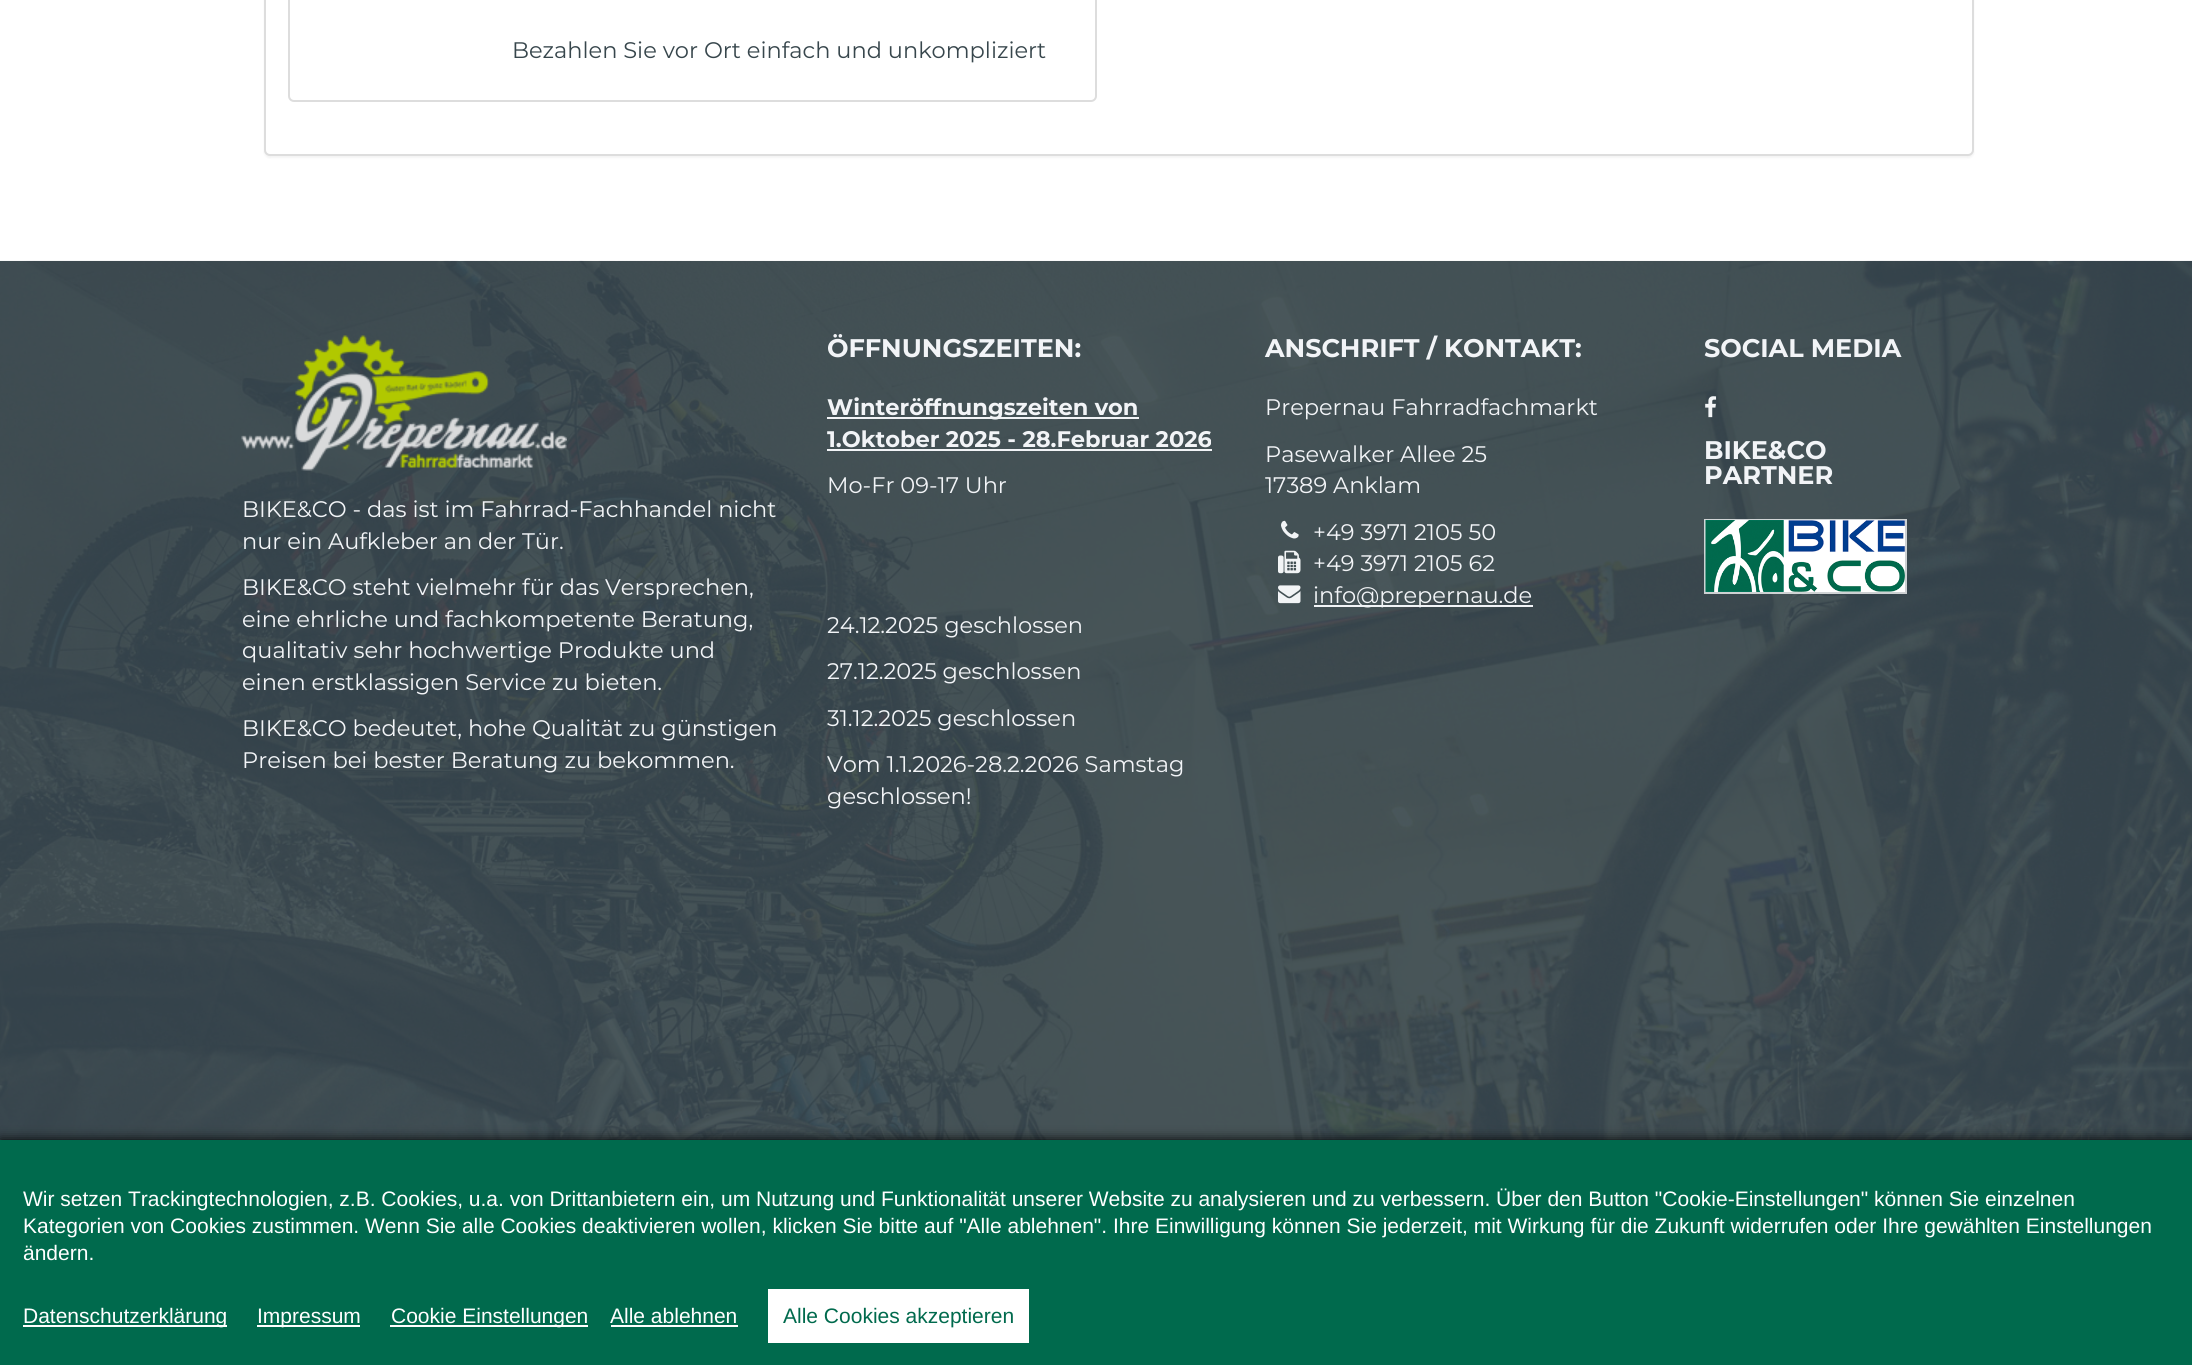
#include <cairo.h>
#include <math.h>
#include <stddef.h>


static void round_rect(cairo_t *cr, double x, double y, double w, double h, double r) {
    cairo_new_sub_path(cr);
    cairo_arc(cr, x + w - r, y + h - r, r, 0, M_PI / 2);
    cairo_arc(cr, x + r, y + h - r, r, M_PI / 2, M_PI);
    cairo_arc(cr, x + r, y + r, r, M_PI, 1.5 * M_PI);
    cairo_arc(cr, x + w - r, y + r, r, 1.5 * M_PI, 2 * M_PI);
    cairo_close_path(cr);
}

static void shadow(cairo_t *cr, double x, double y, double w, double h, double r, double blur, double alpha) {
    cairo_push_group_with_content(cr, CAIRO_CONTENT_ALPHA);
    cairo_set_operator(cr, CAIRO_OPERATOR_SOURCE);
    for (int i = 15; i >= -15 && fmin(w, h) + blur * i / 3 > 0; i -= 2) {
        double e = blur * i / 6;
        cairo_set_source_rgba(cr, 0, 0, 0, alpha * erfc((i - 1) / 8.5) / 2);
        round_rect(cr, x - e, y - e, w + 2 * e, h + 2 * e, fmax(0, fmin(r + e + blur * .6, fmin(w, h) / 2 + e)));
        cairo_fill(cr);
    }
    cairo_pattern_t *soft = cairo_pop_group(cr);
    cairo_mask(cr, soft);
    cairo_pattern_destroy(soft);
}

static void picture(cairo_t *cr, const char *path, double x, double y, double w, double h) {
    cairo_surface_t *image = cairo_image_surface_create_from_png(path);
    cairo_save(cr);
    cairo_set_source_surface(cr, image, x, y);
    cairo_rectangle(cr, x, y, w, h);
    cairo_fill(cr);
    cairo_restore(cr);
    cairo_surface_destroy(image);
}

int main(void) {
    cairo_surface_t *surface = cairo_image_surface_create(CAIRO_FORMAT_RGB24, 2192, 1365);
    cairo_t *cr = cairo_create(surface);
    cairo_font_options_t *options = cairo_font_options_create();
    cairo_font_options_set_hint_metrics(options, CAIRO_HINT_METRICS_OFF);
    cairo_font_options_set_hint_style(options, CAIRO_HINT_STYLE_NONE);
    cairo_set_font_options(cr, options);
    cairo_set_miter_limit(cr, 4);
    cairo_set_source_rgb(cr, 1, 1, 1);
    cairo_paint(cr);
    cairo_set_source_rgb(cr, 0, 0, 0);
    shadow(cr, 264, -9, 1710, 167, 6, 1, 0.05);
    cairo_set_source_rgb(cr, 1, 1, 1);
    round_rect(cr, 265, -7, 1708, 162, 5);
    cairo_fill_preserve(cr);
    cairo_set_source_rgb(cr, 0.867, 0.867, 0.867);
    cairo_stroke(cr);
    round_rect(cr, 289, -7, 807, 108, 5);
    cairo_stroke(cr);
    cairo_select_font_face(cr, "Montserrat", CAIRO_FONT_SLANT_NORMAL, CAIRO_FONT_WEIGHT_NORMAL);
    cairo_set_font_size(cr, 22.5);
    cairo_set_source_rgb(cr, 0.216, 0.275, 0.298);
    cairo_move_to(cr, 512, 58);
    cairo_show_text(cr, "Bezahlen Sie vor Ort einfach und unkompliziert");
    cairo_rectangle(cr, 0, 261, 2192, 879);
    cairo_fill(cr);
    picture(cr, "img1.png", 0, 260, 2192, 880);
    cairo_select_font_face(cr, "Montserrat", CAIRO_FONT_SLANT_NORMAL, CAIRO_FONT_WEIGHT_BOLD);
    cairo_set_font_size(cr, 25.5);
    cairo_set_source_rgb(cr, 0.949, 0.957, 0.965);
    cairo_move_to(cr, 827, 357);
    cairo_show_text(cr, "ÖFFNUNGSZEITEN:");
    cairo_rectangle(cr, 827, 417, 312, 2);
    cairo_fill(cr);
    cairo_set_font_size(cr, 22.5);
    cairo_move_to(cr, 827, 415);
    cairo_show_text(cr, "Winteröffnungszeiten von");
    cairo_move_to(cr, 827, 447);
    cairo_show_text(cr, "1.Oktober 2025 - 28.Februar 2026");
    cairo_rectangle(cr, 827, 449, 385, 2);
    cairo_fill(cr);
    cairo_select_font_face(cr, "Montserrat", CAIRO_FONT_SLANT_NORMAL, CAIRO_FONT_WEIGHT_NORMAL);
    cairo_move_to(cr, 827, 493);
    cairo_show_text(cr, "Mo-Fr 09-17 Uhr");
    cairo_move_to(cr, 827, 633);
    cairo_show_text(cr, "24.12.2025 geschlossen");
    cairo_move_to(cr, 827, 679);
    cairo_show_text(cr, "27.12.2025 geschlossen");
    cairo_move_to(cr, 827, 726);
    cairo_show_text(cr, "31.12.2025 geschlossen");
    cairo_move_to(cr, 827, 772);
    cairo_show_text(cr, "Vom 1.1.2026-28.2.2026 Samstag");
    cairo_move_to(cr, 827, 804);
    cairo_show_text(cr, "geschlossen!");
    cairo_select_font_face(cr, "Montserrat", CAIRO_FONT_SLANT_NORMAL, CAIRO_FONT_WEIGHT_BOLD);
    cairo_set_font_size(cr, 25.5);
    cairo_move_to(cr, 1265, 357);
    cairo_show_text(cr, "ANSCHRIFT / KONTAKT:");
    cairo_select_font_face(cr, "Montserrat", CAIRO_FONT_SLANT_NORMAL, CAIRO_FONT_WEIGHT_NORMAL);
    cairo_set_font_size(cr, 22.5);
    cairo_move_to(cr, 1265, 415);
    cairo_show_text(cr, "Prepernau Fahrradfachmarkt");
    cairo_move_to(cr, 1265, 462);
    cairo_show_text(cr, "Pasewalker Allee 25");
    cairo_move_to(cr, 1265, 493);
    cairo_show_text(cr, "17389 Anklam");
    picture(cr, "img2.png", 1281, 520, 18, 19);
    cairo_move_to(cr, 1313, 540);
    cairo_show_text(cr, "+49 3971 2105 50");
    picture(cr, "img3.png", 1278, 550, 23, 24);
    cairo_move_to(cr, 1313, 571);
    cairo_show_text(cr, "+49 3971 2105 62");
    picture(cr, "img4.png", 1278, 585, 23, 19);
    cairo_rectangle(cr, 1314, 605, 219, 2);
    cairo_fill(cr);
    cairo_move_to(cr, 1313, 603);
    cairo_show_text(cr, "info@prepernau.de");
    cairo_select_font_face(cr, "Montserrat", CAIRO_FONT_SLANT_NORMAL, CAIRO_FONT_WEIGHT_BOLD);
    cairo_set_font_size(cr, 25.5);
    cairo_move_to(cr, 1704, 357);
    cairo_show_text(cr, "SOCIAL MEDIA");
    picture(cr, "img5.png", 1705, 396, 12, 22);
    cairo_move_to(cr, 1704, 459);
    cairo_show_text(cr, "BIKE&CO");
    cairo_move_to(cr, 1704, 484);
    cairo_show_text(cr, "PARTNER");
    cairo_rectangle(cr, 1705, 520, 201, 73);
    cairo_set_source_rgba(cr, 1, 1, 1, 0.75);
    cairo_stroke(cr);
    picture(cr, "img6.png", 1705, 520, 200, 72);
    picture(cr, "img7.png", 241, 335, 326, 136);
    cairo_select_font_face(cr, "Montserrat", CAIRO_FONT_SLANT_NORMAL, CAIRO_FONT_WEIGHT_NORMAL);
    cairo_set_font_size(cr, 22.5);
    cairo_set_source_rgb(cr, 0.949, 0.957, 0.965);
    cairo_move_to(cr, 242, 517);
    cairo_show_text(cr, "BIKE&CO - das ist im Fahrrad-Fachhandel nicht");
    cairo_move_to(cr, 242, 549);
    cairo_show_text(cr, "nur ein Aufkleber an der Tür.");
    cairo_move_to(cr, 242, 595);
    cairo_show_text(cr, "BIKE&CO steht vielmehr für das Versprechen,");
    cairo_move_to(cr, 242, 627);
    cairo_show_text(cr, "eine ehrliche und fachkompetente Beratung,");
    cairo_move_to(cr, 242, 658);
    cairo_show_text(cr, "qualitativ sehr hochwertige Produkte und");
    cairo_move_to(cr, 242, 690);
    cairo_show_text(cr, "einen erstklassigen Service zu bieten.");
    cairo_move_to(cr, 242, 736);
    cairo_show_text(cr, "BIKE&CO bedeutet, hohe Qualität zu günstigen");
    cairo_move_to(cr, 242, 768);
    cairo_show_text(cr, "Preisen bei bester Beratung zu bekommen.");
    cairo_set_source_rgb(cr, 0, 0, 0);
    shadow(cr, 0, 1140, 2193, 225, 0, 6, 1);
    cairo_set_source_rgb(cr, 0, 0.416, 0.302);
    cairo_rectangle(cr, 0, 1140, 2192, 225);
    cairo_fill(cr);
    cairo_select_font_face(cr, "Liberation Sans", CAIRO_FONT_SLANT_NORMAL, CAIRO_FONT_WEIGHT_NORMAL);
    cairo_set_font_size(cr, 21);
    cairo_set_source_rgb(cr, 1, 1, 1);
    cairo_move_to(cr, 23, 1206);
    cairo_show_text(cr, "Wir setzen Trackingtechnologien, z.B. Cookies, u.a. von Drittanbietern ein, um Nutzung und Funktionalität unserer Website zu analysieren und zu verbessern. Über den Button \"Cookie-Einstellungen\" können Sie einzelnen");
    cairo_move_to(cr, 23, 1233);
    cairo_show_text(cr, "Kategorien von Cookies zustimmen. Wenn Sie alle Cookies deaktivieren wollen, klicken Sie bitte auf \"Alle ablehnen\". Ihre Einwilligung können Sie jederzeit, mit Wirkung für die Zukunft widerrufen oder Ihre gewählten Einstellungen");
    cairo_move_to(cr, 23, 1260);
    cairo_show_text(cr, "ändern.");
    cairo_rectangle(cr, 23, 1325, 204, 2);
    cairo_fill(cr);
    cairo_move_to(cr, 23, 1323);
    cairo_show_text(cr, "Datenschutzerklärung");
    cairo_rectangle(cr, 257, 1325, 103, 2);
    cairo_fill(cr);
    cairo_move_to(cr, 257, 1323);
    cairo_show_text(cr, "Impressum");
    cairo_rectangle(cr, 390, 1325, 198, 2);
    cairo_fill(cr);
    cairo_move_to(cr, 391, 1323);
    cairo_show_text(cr, "Cookie Einstellungen");
    cairo_move_to(cr, 610, 1323);
    cairo_show_text(cr, "Alle ablehnen");
    cairo_rectangle(cr, 611, 1325, 127, 2);
    cairo_fill(cr);
    cairo_rectangle(cr, 768, 1289, 261, 54);
    cairo_fill(cr);
    cairo_set_source_rgb(cr, 0, 0.416, 0.302);
    cairo_move_to(cr, 783, 1323);
    cairo_show_text(cr, "Alle Cookies akzeptieren");
    cairo_surface_write_to_png(surface, "page.png");
    cairo_font_options_destroy(options);
    cairo_destroy(cr);
    cairo_surface_destroy(surface);
    return 0;
}
